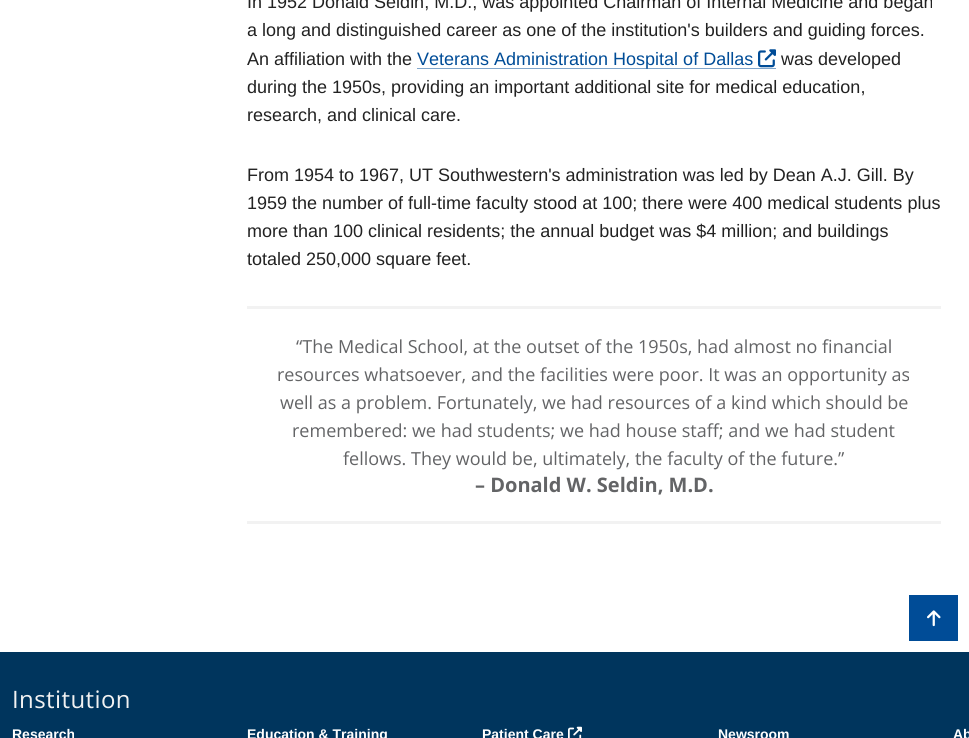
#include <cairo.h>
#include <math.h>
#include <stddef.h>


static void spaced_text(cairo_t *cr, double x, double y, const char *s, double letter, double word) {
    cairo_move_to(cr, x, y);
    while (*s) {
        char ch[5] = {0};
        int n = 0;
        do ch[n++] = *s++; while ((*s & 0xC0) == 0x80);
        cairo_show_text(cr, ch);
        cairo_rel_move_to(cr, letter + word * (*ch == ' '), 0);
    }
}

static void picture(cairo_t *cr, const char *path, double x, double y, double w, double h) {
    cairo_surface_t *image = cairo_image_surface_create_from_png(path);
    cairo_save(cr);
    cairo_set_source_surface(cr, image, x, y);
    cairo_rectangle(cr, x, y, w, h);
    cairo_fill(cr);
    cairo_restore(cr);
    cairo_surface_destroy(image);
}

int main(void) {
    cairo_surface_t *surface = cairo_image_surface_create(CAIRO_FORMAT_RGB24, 969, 738);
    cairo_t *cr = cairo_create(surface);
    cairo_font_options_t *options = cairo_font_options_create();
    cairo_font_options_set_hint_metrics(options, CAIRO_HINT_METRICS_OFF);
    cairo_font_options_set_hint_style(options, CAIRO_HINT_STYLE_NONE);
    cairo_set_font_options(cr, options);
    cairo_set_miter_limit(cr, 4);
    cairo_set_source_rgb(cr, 1, 1, 1);
    cairo_paint(cr);
    cairo_select_font_face(cr, "Liberation Sans", CAIRO_FONT_SLANT_NORMAL, CAIRO_FONT_WEIGHT_NORMAL);
    cairo_set_font_size(cr, 18);
    cairo_set_source_rgb(cr, 0.133, 0.133, 0.133);
    cairo_move_to(cr, 247, 8);
    cairo_show_text(cr, "In 1952 Donald Seldin, M.D., was appointed Chairman of Internal Medicine and began");
    cairo_move_to(cr, 247, 36);
    cairo_show_text(cr, "a long and distinguished career as one of the institution's builders and guiding forces.");
    cairo_move_to(cr, 247, 65);
    cairo_show_text(cr, "An affiliation with the");
    cairo_new_path(cr);
    cairo_move_to(cr, 417.5, 68.5);
    cairo_line_to(cr, 753.5, 68.5);
    cairo_set_source_rgb(cr, 0, 0.298, 0.592);
    cairo_set_line_width(cr, 1);
    cairo_set_dash(cr, (double[]){1, 1}, 2, 0);
    cairo_stroke(cr);
    cairo_move_to(cr, 417, 65);
    cairo_show_text(cr, "Veterans Administration Hospital of Dallas");
    cairo_new_path(cr);
    cairo_move_to(cr, 753.5, 68.5);
    cairo_line_to(cr, 776, 68.5);
    cairo_stroke(cr);
    picture(cr, "img1.png", 758, 49, 18, 19);
    cairo_set_source_rgb(cr, 0.133, 0.133, 0.133);
    cairo_move_to(cr, 781, 65);
    cairo_show_text(cr, "was developed");
    cairo_move_to(cr, 247, 93);
    cairo_show_text(cr, "during the 1950s, providing an important additional site for medical education,");
    cairo_move_to(cr, 247, 121);
    cairo_show_text(cr, "research, and clinical care.");
    cairo_move_to(cr, 247, 181);
    cairo_show_text(cr, "From 1954 to 1967, UT Southwestern's administration was led by Dean A.J. Gill. By");
    cairo_move_to(cr, 247, 209);
    cairo_show_text(cr, "1959 the number of full-time faculty stood at 100; there were 400 medical students plus");
    cairo_move_to(cr, 247, 237);
    cairo_show_text(cr, "more than 100 clinical residents; the annual budget was $4 million; and buildings");
    cairo_move_to(cr, 247, 265);
    cairo_show_text(cr, "totaled 250,000 square feet.");
    cairo_set_source_rgb(cr, 0.949, 0.949, 0.949);
    cairo_rectangle(cr, 247, 306, 694, 3);
    cairo_fill(cr);
    cairo_rectangle(cr, 247, 521, 694, 3);
    cairo_fill(cr);
    cairo_select_font_face(cr, "Open Sans", CAIRO_FONT_SLANT_NORMAL, CAIRO_FONT_WEIGHT_NORMAL);
    cairo_set_source_rgb(cr, 0.388, 0.392, 0.4);
    cairo_move_to(cr, 296, 353);
    cairo_show_text(cr, "“The Medical School, at the outset of the 1950s, had almost no financial");
    cairo_move_to(cr, 277, 381);
    cairo_show_text(cr, "resources whatsoever, and the facilities were poor. It was an opportunity as");
    cairo_move_to(cr, 280, 409);
    cairo_show_text(cr, "well as a problem. Fortunately, we had resources of a kind which should be");
    cairo_move_to(cr, 292, 437);
    cairo_show_text(cr, "remembered: we had students; we had house staff; and we had student");
    cairo_move_to(cr, 343, 465);
    cairo_show_text(cr, "fellows. They would be, ultimately, the faculty of the future.”");
    cairo_select_font_face(cr, "Open Sans", CAIRO_FONT_SLANT_NORMAL, CAIRO_FONT_WEIGHT_BOLD);
    cairo_set_font_size(cr, 20);
    cairo_move_to(cr, 475, 492);
    cairo_show_text(cr, "– Donald W. Seldin, M.D.");
    cairo_set_source_rgb(cr, 0, 0.298, 0.592);
    cairo_rectangle(cr, 909, 595, 49, 46);
    cairo_fill(cr);
    picture(cr, "img2.png", 927, 610, 14, 17);
    cairo_set_source_rgb(cr, 0, 0.208, 0.365);
    cairo_rectangle(cr, 0, 652, 969, 86);
    cairo_fill(cr);
    cairo_select_font_face(cr, "Open Sans", CAIRO_FONT_SLANT_NORMAL, CAIRO_FONT_WEIGHT_NORMAL);
    cairo_set_font_size(cr, 24);
    cairo_set_source_rgb(cr, 0.949, 0.949, 0.949);
    spaced_text(cr, 12, 708, "Institution", 0.4, 0);
    cairo_select_font_face(cr, "Liberation Sans", CAIRO_FONT_SLANT_NORMAL, CAIRO_FONT_WEIGHT_BOLD);
    cairo_set_font_size(cr, 14);
    cairo_set_source_rgb(cr, 1, 1, 1);
    cairo_move_to(cr, 12, 739);
    cairo_show_text(cr, "Research");
    cairo_move_to(cr, 247, 739);
    cairo_show_text(cr, "Education & Training");
    cairo_move_to(cr, 482, 739);
    cairo_show_text(cr, "Patient Care");
    picture(cr, "img3.png", 568, 726, 14, 12);
    cairo_move_to(cr, 718, 739);
    cairo_show_text(cr, "Newsroom");
    cairo_move_to(cr, 953, 739);
    cairo_show_text(cr, "Ab");
    cairo_surface_write_to_png(surface, "page.png");
    cairo_font_options_destroy(options);
    cairo_destroy(cr);
    cairo_surface_destroy(surface);
    return 0;
}
